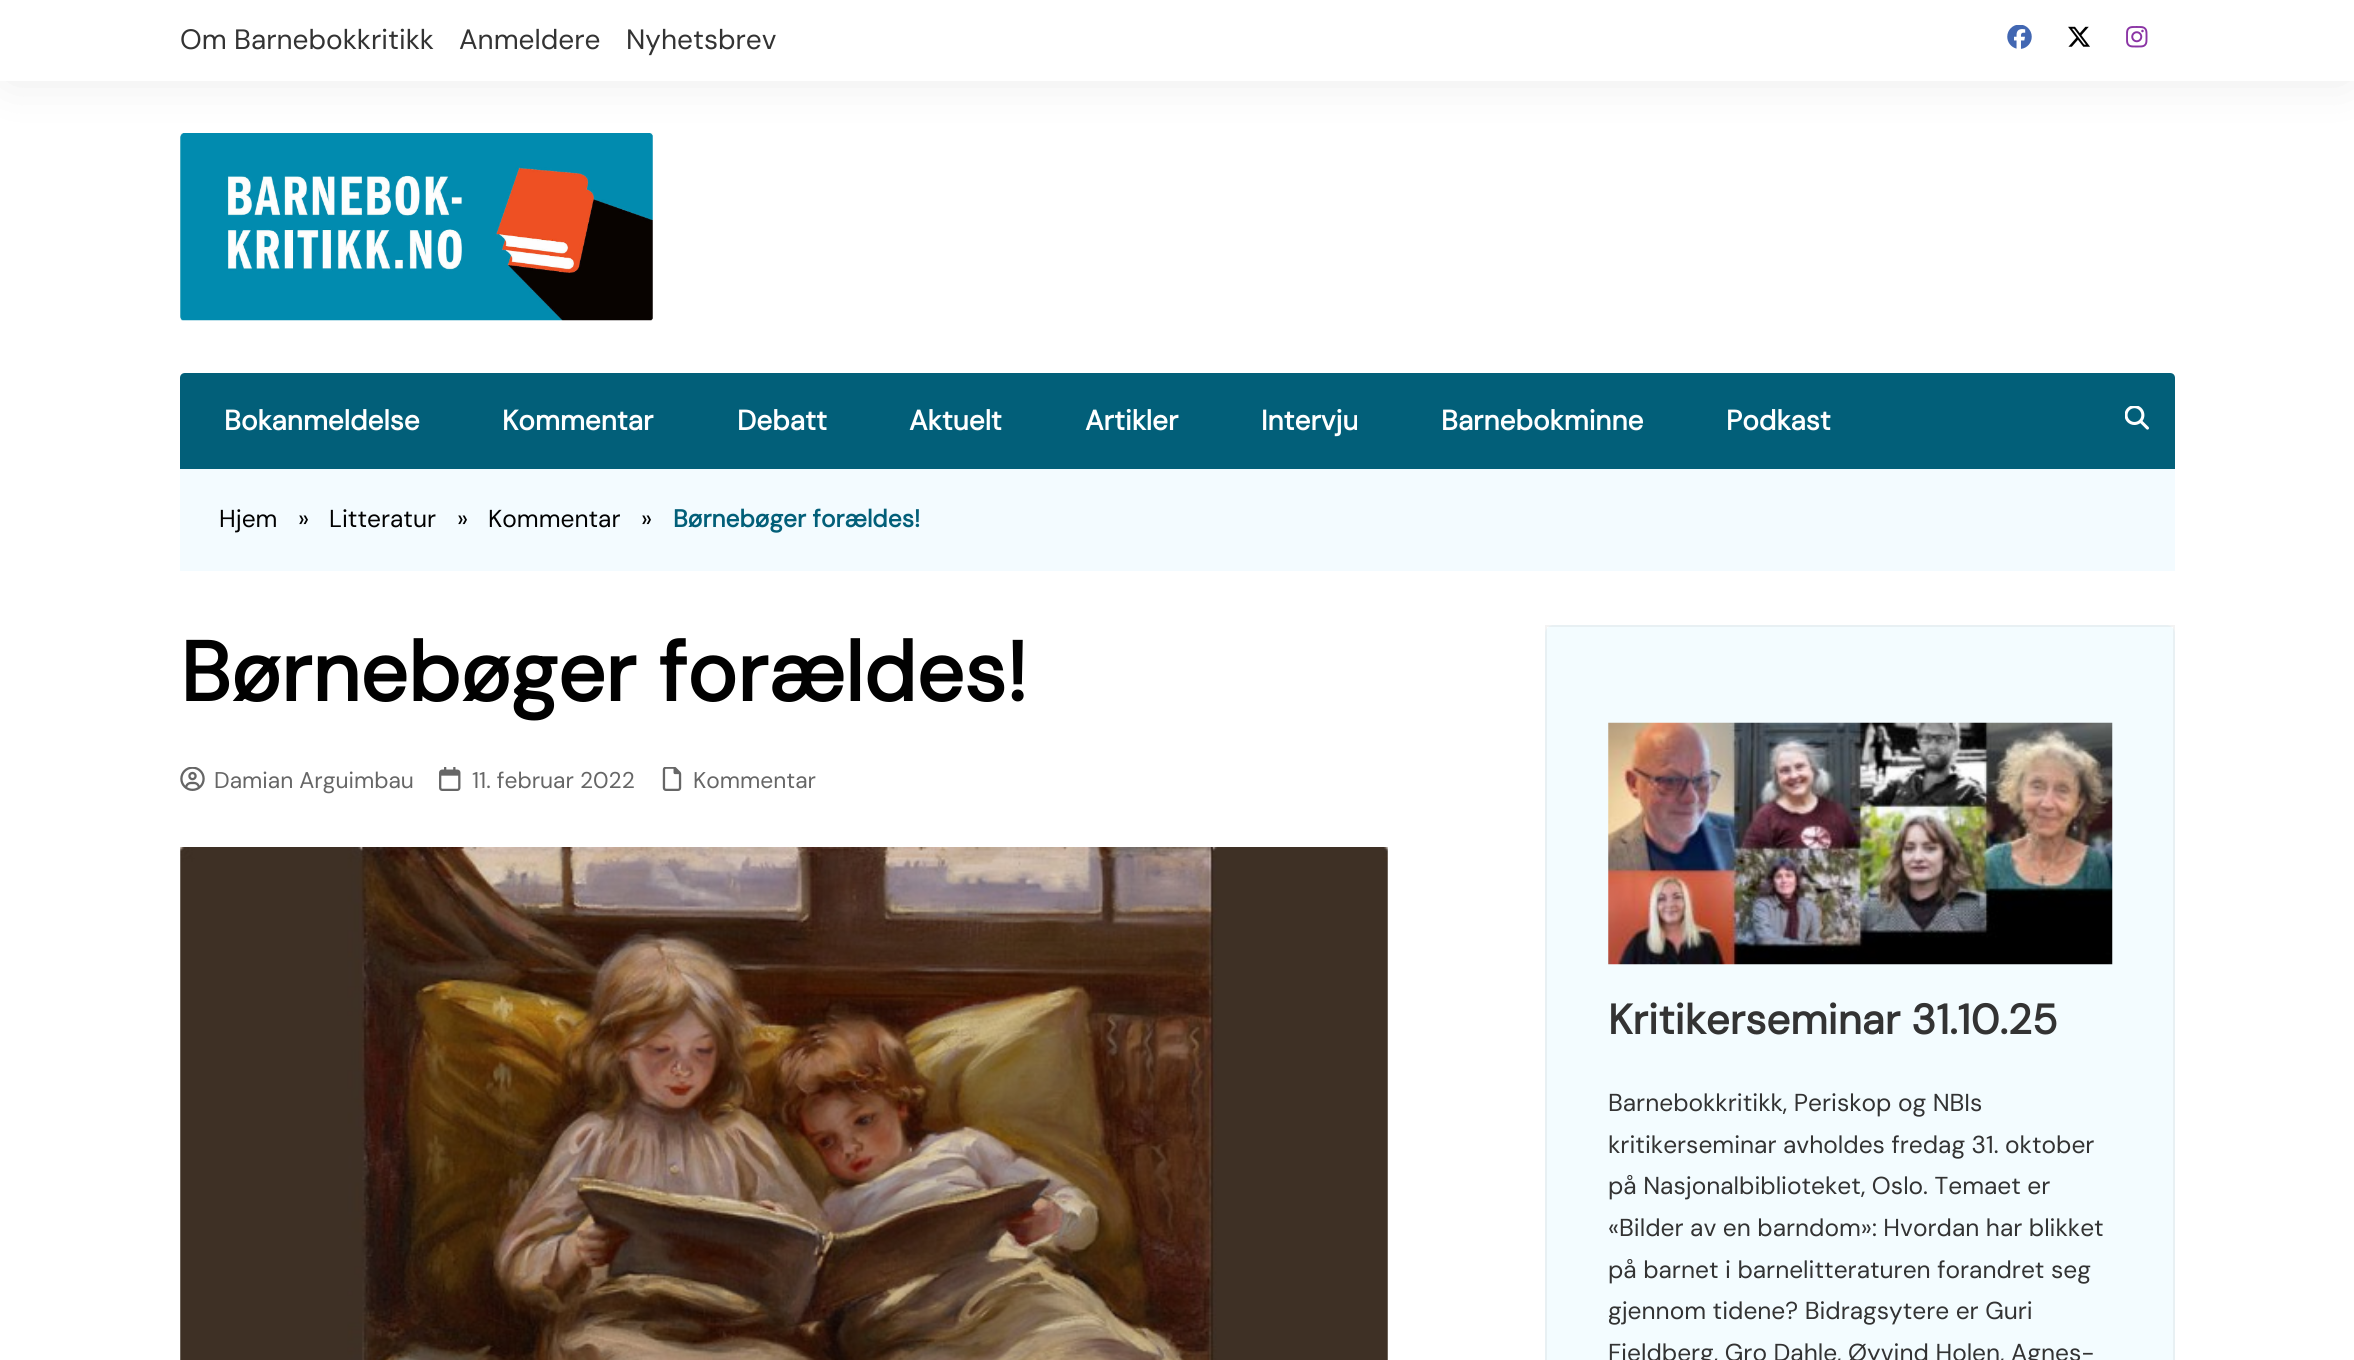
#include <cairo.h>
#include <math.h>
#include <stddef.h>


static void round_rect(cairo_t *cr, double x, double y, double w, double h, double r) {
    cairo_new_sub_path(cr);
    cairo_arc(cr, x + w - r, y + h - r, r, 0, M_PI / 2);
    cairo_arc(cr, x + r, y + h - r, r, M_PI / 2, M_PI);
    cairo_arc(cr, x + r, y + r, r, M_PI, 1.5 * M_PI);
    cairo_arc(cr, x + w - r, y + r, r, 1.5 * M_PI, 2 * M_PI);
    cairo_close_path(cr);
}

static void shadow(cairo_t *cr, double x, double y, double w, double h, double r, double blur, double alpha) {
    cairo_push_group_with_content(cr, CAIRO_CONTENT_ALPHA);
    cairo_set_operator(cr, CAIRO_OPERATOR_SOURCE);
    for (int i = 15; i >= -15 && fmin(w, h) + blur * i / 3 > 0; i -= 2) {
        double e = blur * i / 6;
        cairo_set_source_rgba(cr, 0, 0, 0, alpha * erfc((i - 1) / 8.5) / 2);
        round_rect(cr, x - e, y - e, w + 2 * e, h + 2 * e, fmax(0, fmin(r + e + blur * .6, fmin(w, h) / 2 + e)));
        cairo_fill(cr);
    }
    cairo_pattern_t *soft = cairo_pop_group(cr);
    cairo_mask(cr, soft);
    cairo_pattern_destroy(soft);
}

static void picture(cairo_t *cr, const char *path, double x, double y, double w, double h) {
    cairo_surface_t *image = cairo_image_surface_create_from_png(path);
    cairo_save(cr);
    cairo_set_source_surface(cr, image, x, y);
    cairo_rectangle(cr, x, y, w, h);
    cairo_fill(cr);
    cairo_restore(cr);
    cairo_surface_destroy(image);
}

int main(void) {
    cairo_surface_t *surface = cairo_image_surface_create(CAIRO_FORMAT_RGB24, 2354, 1360);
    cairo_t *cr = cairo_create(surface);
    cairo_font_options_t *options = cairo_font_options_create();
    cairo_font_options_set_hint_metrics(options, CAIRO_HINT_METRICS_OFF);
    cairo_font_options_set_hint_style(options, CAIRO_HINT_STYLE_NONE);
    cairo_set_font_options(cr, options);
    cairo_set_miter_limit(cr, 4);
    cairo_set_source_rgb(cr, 1, 1, 1);
    cairo_paint(cr);
    cairo_set_source_rgb(cr, 0, 0, 0);
    shadow(cr, 9, 12, 2338, 63, 0, 26, 0.1);
    cairo_set_source_rgb(cr, 1, 1, 1);
    cairo_rectangle(cr, 0, 0, 2354, 81);
    cairo_fill(cr);
    cairo_select_font_face(cr, "DM Sans", CAIRO_FONT_SLANT_NORMAL, CAIRO_FONT_WEIGHT_NORMAL);
    cairo_set_font_size(cr, 28);
    cairo_set_source_rgb(cr, 0.2, 0.2, 0.2);
    cairo_move_to(cr, 180, 49);
    cairo_show_text(cr, "Om Barnebokkritikk");
    cairo_move_to(cr, 459, 49);
    cairo_show_text(cr, "Anmeldere");
    cairo_move_to(cr, 626, 49);
    cairo_show_text(cr, "Nyhetsbrev");
    picture(cr, "img1.png", 2007, 25, 25, 24);
    picture(cr, "img2.png", 2068, 26, 22, 21);
    picture(cr, "img3.png", 2126, 26, 22, 22);
    picture(cr, "img4.png", 180, 133, 473, 188);
    cairo_set_source_rgb(cr, 0.008, 0.373, 0.475);
    cairo_new_path(cr);
    cairo_move_to(cr, 185, 373);
    cairo_line_to(cr, 2170, 373);
    cairo_curve_to(cr, 2173, 373, 2175, 375, 2175, 378);
    cairo_line_to(cr, 2175, 469);
    cairo_line_to(cr, 180, 469);
    cairo_line_to(cr, 180, 378);
    cairo_curve_to(cr, 180, 375, 182, 373, 185, 373);
    cairo_close_path(cr);
    cairo_fill(cr);
    cairo_select_font_face(cr, "DM Sans", CAIRO_FONT_SLANT_NORMAL, CAIRO_FONT_WEIGHT_BOLD);
    cairo_set_source_rgb(cr, 1, 1, 1);
    cairo_move_to(cr, 224, 430);
    cairo_show_text(cr, "Bokanmeldelse");
    cairo_move_to(cr, 502, 430);
    cairo_show_text(cr, "Kommentar");
    cairo_move_to(cr, 737, 430);
    cairo_show_text(cr, "Debatt");
    cairo_move_to(cr, 909, 430);
    cairo_show_text(cr, "Aktuelt");
    cairo_move_to(cr, 1085, 430);
    cairo_show_text(cr, "Artikler");
    cairo_move_to(cr, 1261, 430);
    cairo_show_text(cr, "Intervju");
    cairo_move_to(cr, 1441, 430);
    cairo_show_text(cr, "Barnebokminne");
    cairo_move_to(cr, 1726, 430);
    cairo_show_text(cr, "Podkast");
    picture(cr, "img5.png", 2125, 406, 24, 24);
    cairo_set_source_rgb(cr, 0.953, 0.984, 1);
    cairo_rectangle(cr, 180, 469, 1995, 102);
    cairo_fill(cr);
    cairo_select_font_face(cr, "DM Sans", CAIRO_FONT_SLANT_NORMAL, CAIRO_FONT_WEIGHT_NORMAL);
    cairo_set_font_size(cr, 24.5);
    cairo_set_source_rgb(cr, 0.004, 0.004, 0.004);
    cairo_move_to(cr, 219, 527);
    cairo_show_text(cr, "Hjem");
    cairo_move_to(cr, 298, 527);
    cairo_show_text(cr, "»");
    cairo_move_to(cr, 329, 527);
    cairo_show_text(cr, "Litteratur");
    cairo_move_to(cr, 457, 527);
    cairo_show_text(cr, "»");
    cairo_move_to(cr, 488, 527);
    cairo_show_text(cr, "Kommentar");
    cairo_move_to(cr, 641, 527);
    cairo_show_text(cr, "»");
    cairo_select_font_face(cr, "DM Sans", CAIRO_FONT_SLANT_NORMAL, CAIRO_FONT_WEIGHT_BOLD);
    cairo_set_source_rgb(cr, 0.008, 0.373, 0.475);
    cairo_move_to(cr, 673, 527);
    cairo_show_text(cr, "Børnebøger forældes!");
    cairo_set_font_size(cr, 84);
    cairo_set_source_rgb(cr, 0.004, 0.004, 0.004);
    cairo_move_to(cr, 180, 701);
    cairo_show_text(cr, "Børnebøger forældes!");
    picture(cr, "img6.png", 180, 767, 25, 24);
    cairo_select_font_face(cr, "DM Sans", CAIRO_FONT_SLANT_NORMAL, CAIRO_FONT_WEIGHT_NORMAL);
    cairo_set_font_size(cr, 22.75);
    cairo_set_source_rgb(cr, 0.4, 0.4, 0.4);
    cairo_move_to(cr, 214, 788);
    cairo_show_text(cr, "Damian Arguimbau");
    picture(cr, "img7.png", 439, 767, 22, 24);
    cairo_move_to(cr, 472, 788);
    cairo_show_text(cr, "11. februar 2022");
    picture(cr, "img8.png", 662, 767, 20, 24);
    cairo_move_to(cr, 693, 788);
    cairo_show_text(cr, "Kommentar");
    picture(cr, "img9.png", 180, 847, 1208, 513);
    cairo_set_source_rgb(cr, 0.953, 0.988, 1);
    round_rect(cr, 1545, 625, 630, 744, 9);
    cairo_fill(cr);
    cairo_rectangle(cr, 1546, 626, 628, 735);
    cairo_set_source_rgba(cr, 0, 0, 0, 0.05);
    cairo_stroke(cr);
    picture(cr, "img10.png", 1608, 722, 505, 243);
    cairo_select_font_face(cr, "DM Sans", CAIRO_FONT_SLANT_NORMAL, CAIRO_FONT_WEIGHT_BOLD);
    cairo_set_font_size(cr, 42);
    cairo_set_source_rgb(cr, 0.2, 0.2, 0.2);
    cairo_move_to(cr, 1608, 1034);
    cairo_show_text(cr, "Kritikerseminar 31.10.25");
    cairo_select_font_face(cr, "DM Sans", CAIRO_FONT_SLANT_NORMAL, CAIRO_FONT_WEIGHT_NORMAL);
    cairo_set_font_size(cr, 24.5);
    cairo_move_to(cr, 1608, 1111);
    cairo_show_text(cr, "Barnebokkritikk, Periskop og NBIs");
    cairo_move_to(cr, 1608, 1153);
    cairo_show_text(cr, "kritikerseminar avholdes fredag 31. oktober");
    cairo_move_to(cr, 1608, 1194);
    cairo_show_text(cr, "på Nasjonalbiblioteket, Oslo. Temaet er");
    cairo_move_to(cr, 1608, 1236);
    cairo_show_text(cr, "«Bilder av en barndom»: Hvordan har blikket");
    cairo_move_to(cr, 1608, 1278);
    cairo_show_text(cr, "på barnet i barnelitteraturen forandret seg");
    cairo_move_to(cr, 1608, 1319);
    cairo_show_text(cr, "gjennom tidene? Bidragsytere er Guri");
    cairo_move_to(cr, 1608, 1361);
    cairo_show_text(cr, "Fjeldberg, Gro Dahle, Øyvind Holen, Agnes-");
    cairo_surface_write_to_png(surface, "page.png");
    cairo_font_options_destroy(options);
    cairo_destroy(cr);
    cairo_surface_destroy(surface);
    return 0;
}
